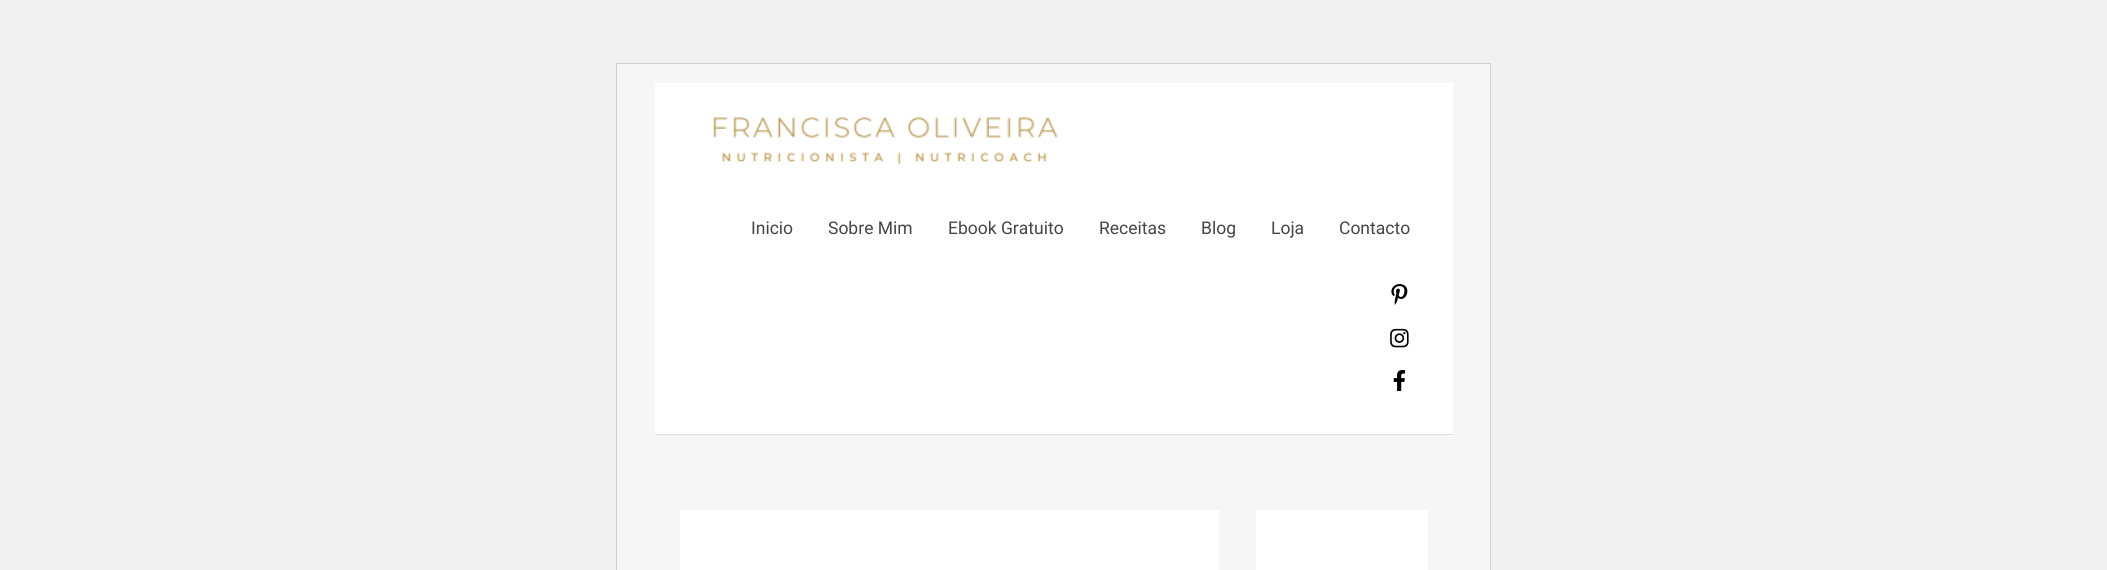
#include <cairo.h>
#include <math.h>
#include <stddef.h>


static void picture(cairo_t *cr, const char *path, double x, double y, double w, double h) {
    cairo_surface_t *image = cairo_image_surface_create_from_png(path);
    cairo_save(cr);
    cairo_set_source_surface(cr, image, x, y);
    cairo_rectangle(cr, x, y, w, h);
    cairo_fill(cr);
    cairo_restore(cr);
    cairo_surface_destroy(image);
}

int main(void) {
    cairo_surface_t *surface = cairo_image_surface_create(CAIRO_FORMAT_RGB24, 2107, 570);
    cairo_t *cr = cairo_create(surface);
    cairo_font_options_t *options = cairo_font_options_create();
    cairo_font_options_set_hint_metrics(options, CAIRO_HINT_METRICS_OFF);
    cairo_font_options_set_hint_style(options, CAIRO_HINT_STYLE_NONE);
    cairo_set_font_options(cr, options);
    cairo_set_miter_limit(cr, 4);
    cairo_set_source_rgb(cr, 0.945, 0.945, 0.945);
    cairo_paint(cr);
    cairo_set_source_rgb(cr, 0.961, 0.961, 0.961);
    cairo_rectangle(cr, 616.5, 63.5, 874, 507);
    cairo_fill_preserve(cr);
    cairo_set_source_rgb(cr, 0.8, 0.816, 0.831);
    cairo_set_line_width(cr, 1);
    cairo_stroke(cr);
    cairo_set_source_rgb(cr, 1, 1, 1);
    cairo_rectangle(cr, 655, 83, 798, 351);
    cairo_fill(cr);
    cairo_set_source_rgb(cr, 0.867, 0.867, 0.867);
    cairo_rectangle(cr, 655, 434, 798, 1);
    cairo_fill(cr);
    picture(cr, "img1.png", 713, 116, 345, 48);
    cairo_select_font_face(cr, "Roboto", CAIRO_FONT_SLANT_NORMAL, CAIRO_FONT_WEIGHT_NORMAL);
    cairo_set_font_size(cr, 17.5);
    cairo_set_source_rgb(cr, 0.271, 0.271, 0.271);
    cairo_move_to(cr, 751, 234);
    cairo_show_text(cr, "Inicio");
    cairo_move_to(cr, 828, 234);
    cairo_show_text(cr, "Sobre Mim");
    cairo_move_to(cr, 948, 234);
    cairo_show_text(cr, "Ebook Gratuito");
    cairo_move_to(cr, 1099, 234);
    cairo_show_text(cr, "Receitas");
    cairo_move_to(cr, 1201, 234);
    cairo_show_text(cr, "Blog");
    cairo_move_to(cr, 1271, 234);
    cairo_show_text(cr, "Loja");
    cairo_move_to(cr, 1339, 234);
    cairo_show_text(cr, "Contacto");
    picture(cr, "img2.png", 1391, 284, 17, 21);
    picture(cr, "img3.png", 1390, 328, 19, 20);
    picture(cr, "img4.png", 1393, 370, 13, 21);
    cairo_set_source_rgb(cr, 1, 1, 1);
    cairo_rectangle(cr, 680, 510, 539, 60);
    cairo_fill(cr);
    cairo_rectangle(cr, 1256, 510, 172, 60);
    cairo_fill(cr);
    cairo_surface_write_to_png(surface, "page.png");
    cairo_font_options_destroy(options);
    cairo_destroy(cr);
    cairo_surface_destroy(surface);
    return 0;
}
